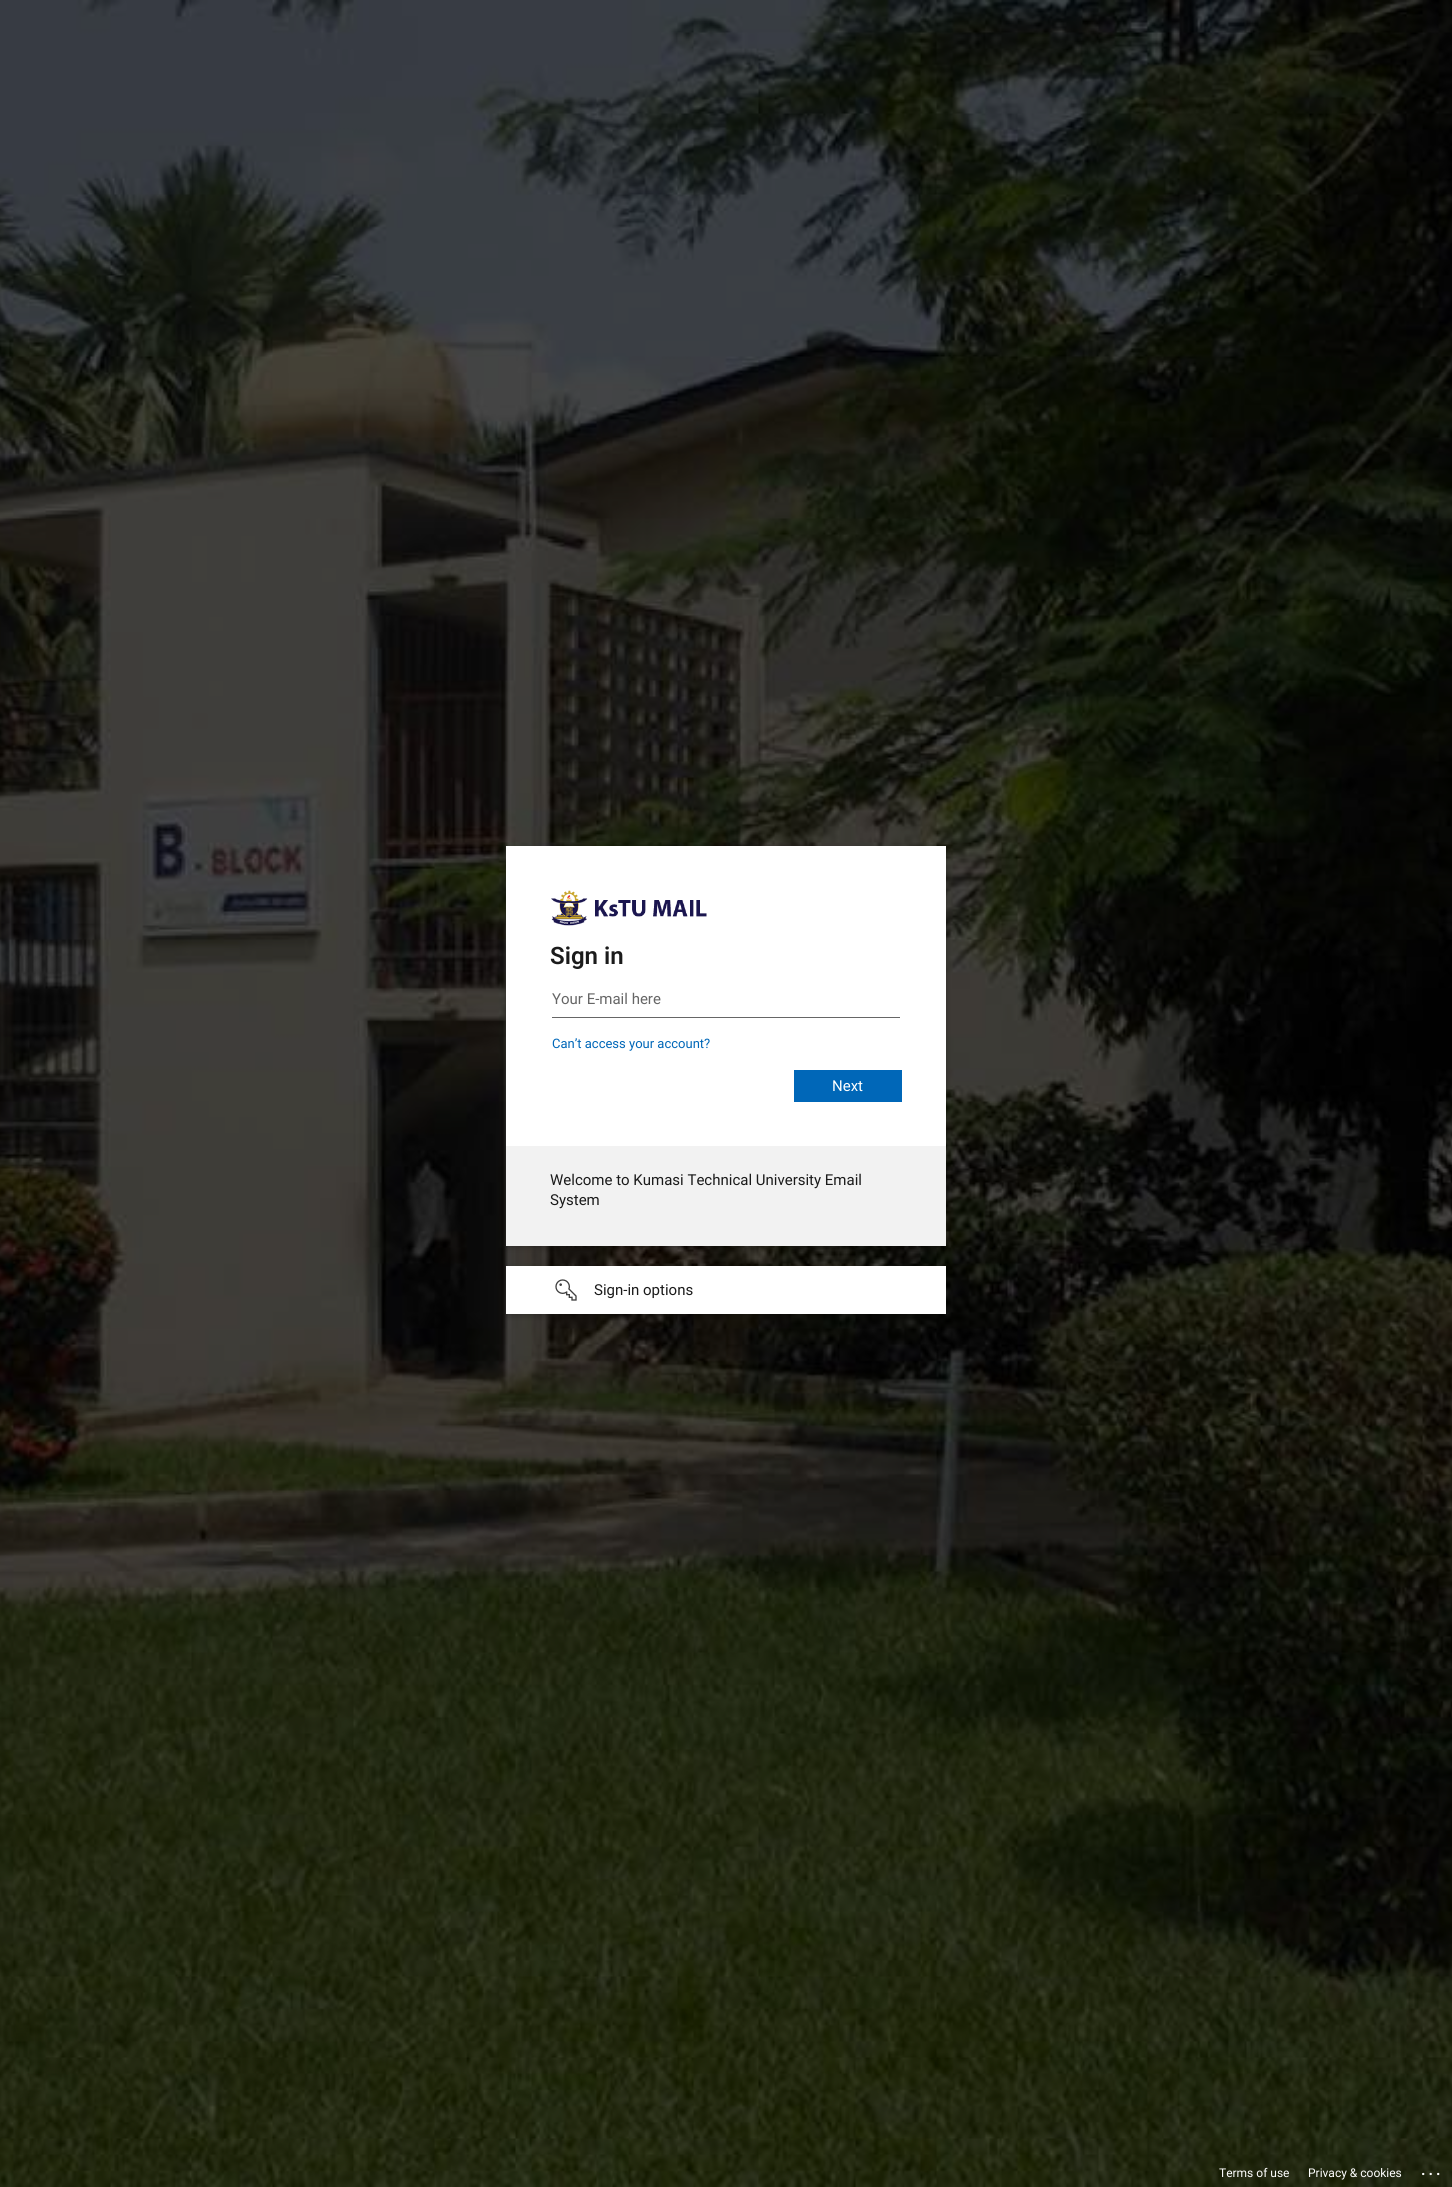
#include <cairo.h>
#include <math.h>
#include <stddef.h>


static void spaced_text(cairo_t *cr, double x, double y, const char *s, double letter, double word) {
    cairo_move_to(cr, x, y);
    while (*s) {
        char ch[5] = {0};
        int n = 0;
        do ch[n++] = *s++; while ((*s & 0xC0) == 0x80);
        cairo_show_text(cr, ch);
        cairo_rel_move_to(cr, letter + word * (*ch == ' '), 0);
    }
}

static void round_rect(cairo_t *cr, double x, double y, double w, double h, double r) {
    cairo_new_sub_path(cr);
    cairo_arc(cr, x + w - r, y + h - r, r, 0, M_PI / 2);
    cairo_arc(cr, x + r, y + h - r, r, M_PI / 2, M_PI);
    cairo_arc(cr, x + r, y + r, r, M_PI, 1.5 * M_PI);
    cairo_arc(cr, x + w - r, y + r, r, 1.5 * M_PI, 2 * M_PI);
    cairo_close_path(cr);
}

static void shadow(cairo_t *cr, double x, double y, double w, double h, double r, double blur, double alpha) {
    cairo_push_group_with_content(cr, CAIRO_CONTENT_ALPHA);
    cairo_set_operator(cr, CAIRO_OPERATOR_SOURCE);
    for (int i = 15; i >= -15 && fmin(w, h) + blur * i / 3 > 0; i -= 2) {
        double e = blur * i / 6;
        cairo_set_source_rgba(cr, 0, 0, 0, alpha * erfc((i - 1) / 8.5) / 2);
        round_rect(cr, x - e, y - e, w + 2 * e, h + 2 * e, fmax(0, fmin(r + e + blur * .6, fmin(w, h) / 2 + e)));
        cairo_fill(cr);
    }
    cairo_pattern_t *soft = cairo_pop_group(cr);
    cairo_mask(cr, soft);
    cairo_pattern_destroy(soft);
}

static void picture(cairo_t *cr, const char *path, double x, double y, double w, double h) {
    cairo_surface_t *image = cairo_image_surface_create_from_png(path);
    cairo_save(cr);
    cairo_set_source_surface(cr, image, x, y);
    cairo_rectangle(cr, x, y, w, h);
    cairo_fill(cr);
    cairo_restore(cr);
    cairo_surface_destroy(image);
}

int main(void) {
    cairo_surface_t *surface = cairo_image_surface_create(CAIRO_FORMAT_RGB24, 1452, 2187);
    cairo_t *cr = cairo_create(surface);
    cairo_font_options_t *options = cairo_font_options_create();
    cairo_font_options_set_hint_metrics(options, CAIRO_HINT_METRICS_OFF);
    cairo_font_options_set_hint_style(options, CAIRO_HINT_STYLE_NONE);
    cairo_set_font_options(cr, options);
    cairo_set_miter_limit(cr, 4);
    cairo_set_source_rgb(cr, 1, 1, 1);
    cairo_paint(cr);
    picture(cr, "img1.png", 0, 0, 1452, 2187);
    cairo_set_source_rgb(cr, 0, 0, 0);
    shadow(cr, 506, 848, 440, 400, 0, 3, 0.2);
    cairo_set_source_rgb(cr, 1, 1, 1);
    cairo_rectangle(cr, 506, 846, 440, 300);
    cairo_fill(cr);
    picture(cr, "img2.png", 551, 890, 156, 36);
    cairo_select_font_face(cr, "Roboto SemiBold", CAIRO_FONT_SLANT_NORMAL, CAIRO_FONT_WEIGHT_NORMAL);
    cairo_set_font_size(cr, 24);
    cairo_set_source_rgb(cr, 0.106, 0.106, 0.106);
    cairo_move_to(cr, 550, 964);
    cairo_show_text(cr, "Sign in");
    cairo_set_source_rgb(cr, 0.4, 0.4, 0.4);
    cairo_rectangle(cr, 552, 1017, 348, 1);
    cairo_fill(cr);
    cairo_select_font_face(cr, "Roboto", CAIRO_FONT_SLANT_NORMAL, CAIRO_FONT_WEIGHT_NORMAL);
    cairo_set_font_size(cr, 15);
    cairo_move_to(cr, 552, 1004);
    cairo_show_text(cr, "Your E-mail here");
    cairo_set_font_size(cr, 13);
    cairo_set_source_rgb(cr, 0, 0.404, 0.722);
    cairo_move_to(cr, 552, 1048);
    cairo_show_text(cr, "Can’t access your account?");
    cairo_rectangle(cr, 794, 1070, 108, 32);
    cairo_fill(cr);
    cairo_set_font_size(cr, 15);
    cairo_set_source_rgb(cr, 1, 1, 1);
    cairo_move_to(cr, 832, 1091);
    cairo_show_text(cr, "Next");
    cairo_set_source_rgb(cr, 0.949, 0.949, 0.949);
    cairo_rectangle(cr, 506, 1146, 440, 100);
    cairo_fill(cr);
    cairo_set_source_rgb(cr, 0.106, 0.106, 0.106);
    cairo_move_to(cr, 550, 1185);
    cairo_show_text(cr, "Welcome to Kumasi Technical University Email");
    cairo_move_to(cr, 550, 1205);
    cairo_show_text(cr, "System");
    cairo_set_source_rgb(cr, 0, 0, 0);
    shadow(cr, 506, 1268, 440, 48, 0, 3, 0.2);
    cairo_set_source_rgb(cr, 1, 1, 1);
    cairo_rectangle(cr, 506, 1266, 440, 48);
    cairo_fill(cr);
    picture(cr, "img3.png", 555, 1279, 22, 22);
    cairo_set_source_rgb(cr, 0.106, 0.106, 0.106);
    cairo_move_to(cr, 594, 1295);
    cairo_show_text(cr, "Sign-in options");
    cairo_set_font_size(cr, 12);
    cairo_set_source_rgb(cr, 1, 1, 1);
    cairo_move_to(cr, 1219, 2177);
    cairo_show_text(cr, "Terms of use");
    cairo_move_to(cr, 1308, 2177);
    cairo_show_text(cr, "Privacy & cookies");
    cairo_select_font_face(cr, "Roboto SemiBold", CAIRO_FONT_SLANT_NORMAL, CAIRO_FONT_WEIGHT_NORMAL);
    cairo_set_font_size(cr, 16);
    spaced_text(cr, 1421, 2175, "...", 3, 0);
    cairo_surface_write_to_png(surface, "page.png");
    cairo_font_options_destroy(options);
    cairo_destroy(cr);
    cairo_surface_destroy(surface);
    return 0;
}
